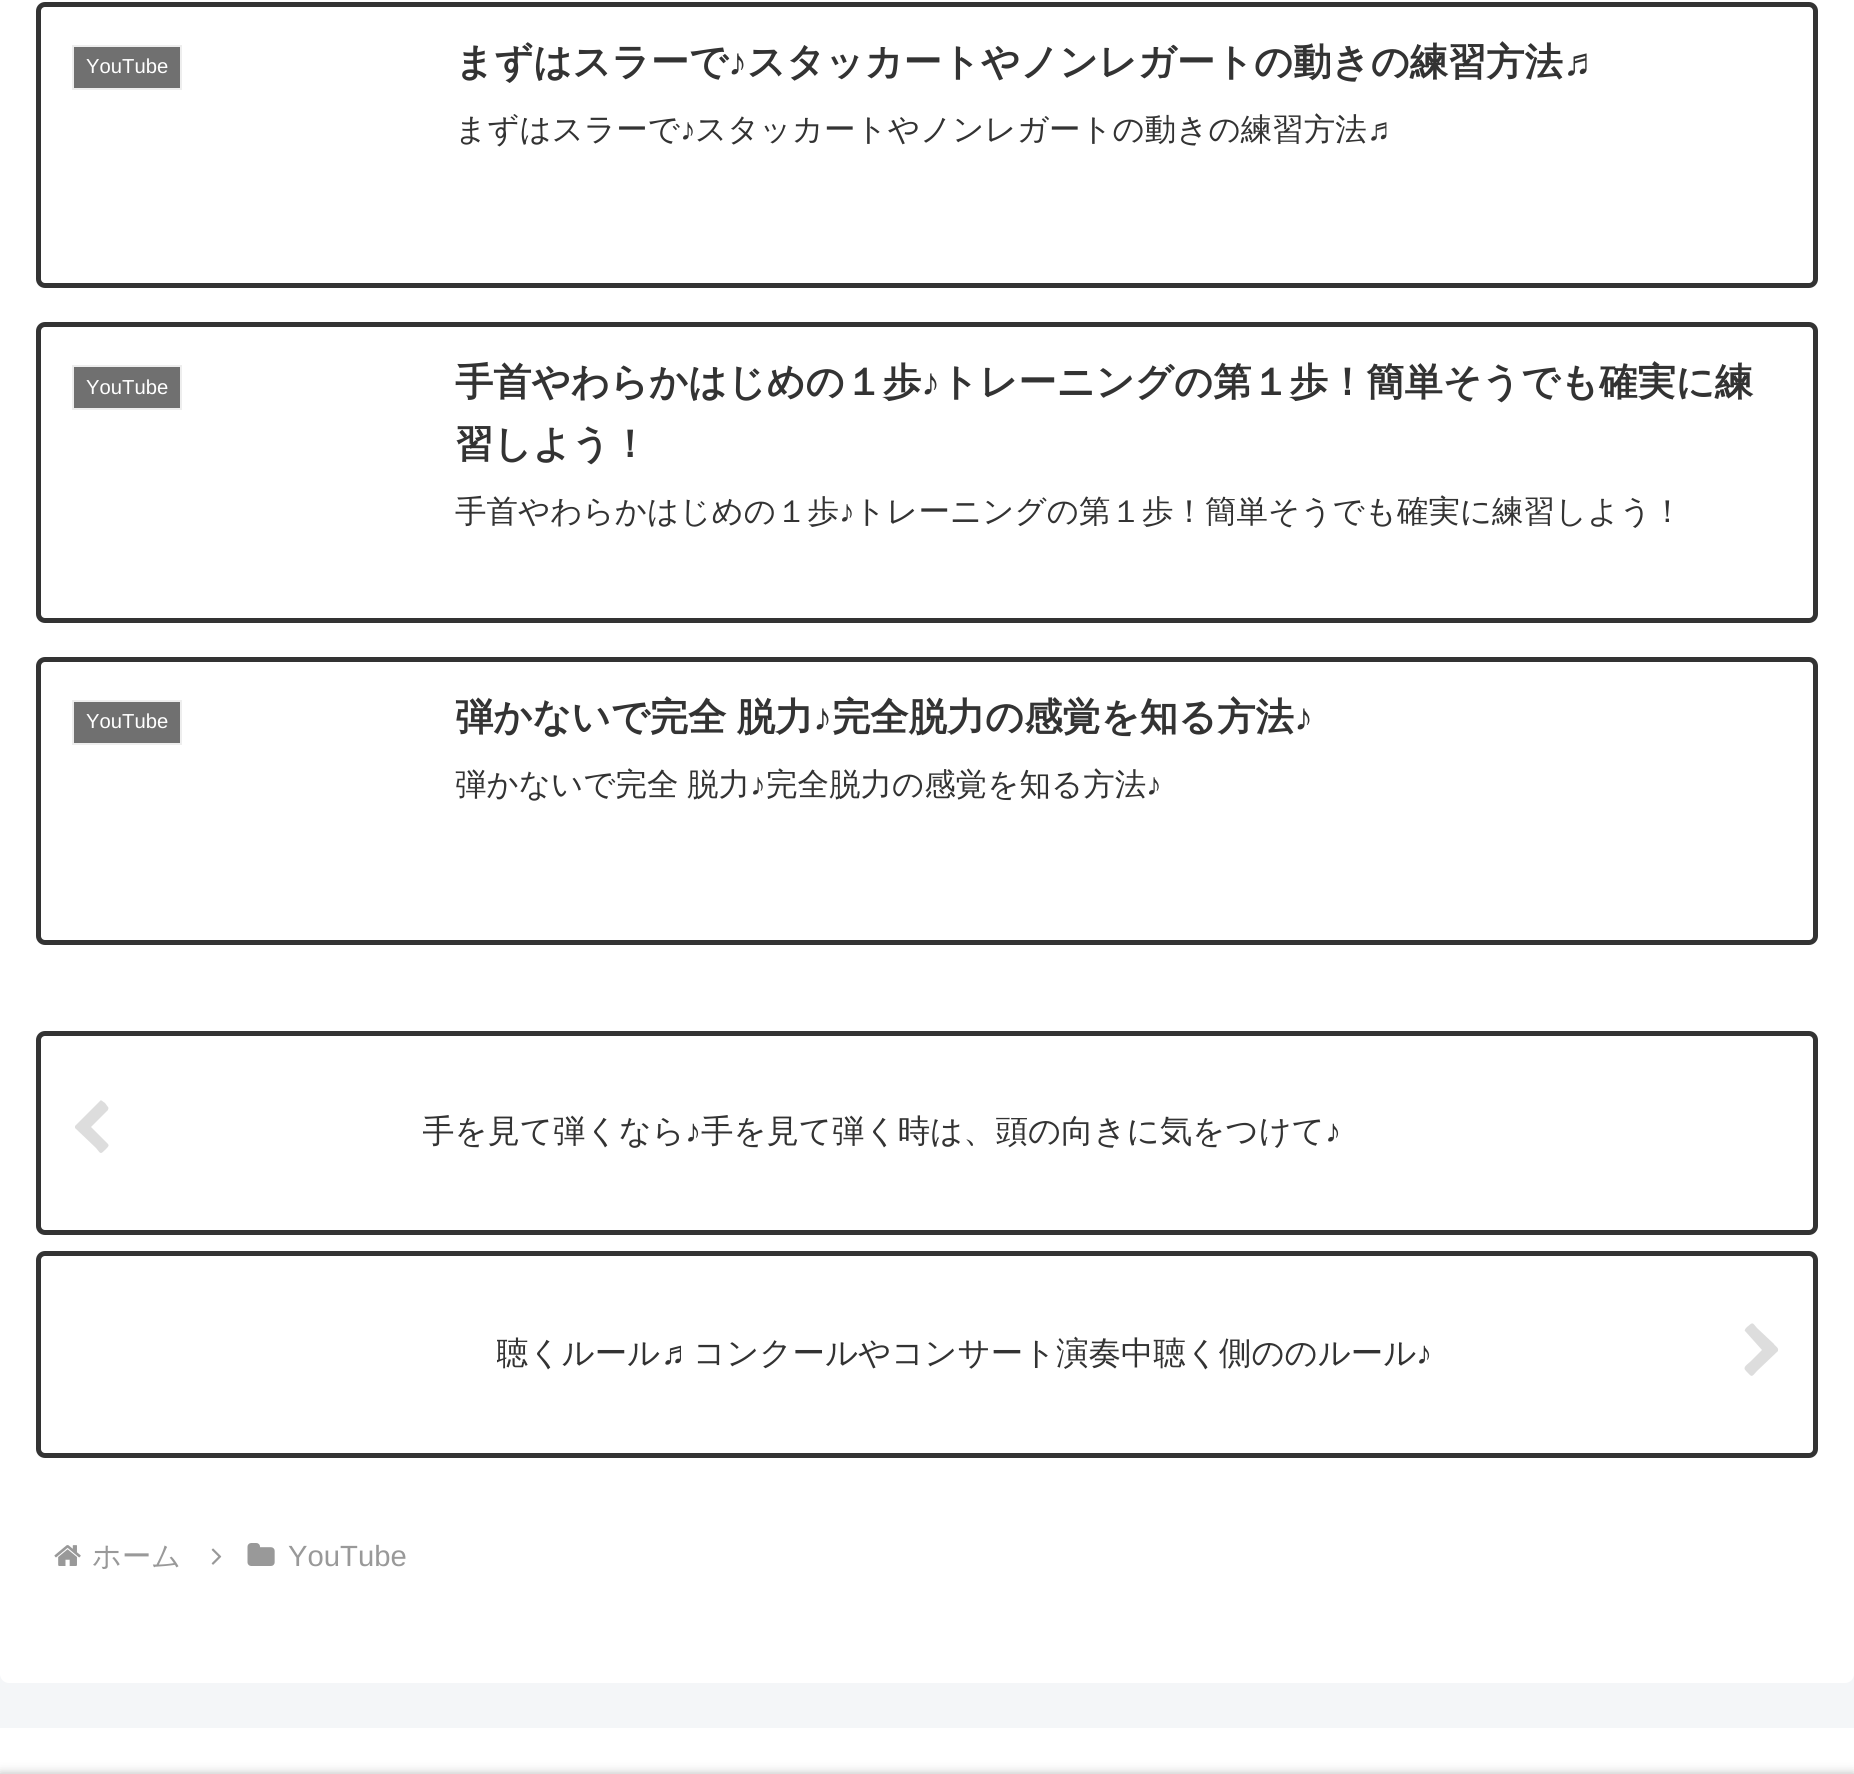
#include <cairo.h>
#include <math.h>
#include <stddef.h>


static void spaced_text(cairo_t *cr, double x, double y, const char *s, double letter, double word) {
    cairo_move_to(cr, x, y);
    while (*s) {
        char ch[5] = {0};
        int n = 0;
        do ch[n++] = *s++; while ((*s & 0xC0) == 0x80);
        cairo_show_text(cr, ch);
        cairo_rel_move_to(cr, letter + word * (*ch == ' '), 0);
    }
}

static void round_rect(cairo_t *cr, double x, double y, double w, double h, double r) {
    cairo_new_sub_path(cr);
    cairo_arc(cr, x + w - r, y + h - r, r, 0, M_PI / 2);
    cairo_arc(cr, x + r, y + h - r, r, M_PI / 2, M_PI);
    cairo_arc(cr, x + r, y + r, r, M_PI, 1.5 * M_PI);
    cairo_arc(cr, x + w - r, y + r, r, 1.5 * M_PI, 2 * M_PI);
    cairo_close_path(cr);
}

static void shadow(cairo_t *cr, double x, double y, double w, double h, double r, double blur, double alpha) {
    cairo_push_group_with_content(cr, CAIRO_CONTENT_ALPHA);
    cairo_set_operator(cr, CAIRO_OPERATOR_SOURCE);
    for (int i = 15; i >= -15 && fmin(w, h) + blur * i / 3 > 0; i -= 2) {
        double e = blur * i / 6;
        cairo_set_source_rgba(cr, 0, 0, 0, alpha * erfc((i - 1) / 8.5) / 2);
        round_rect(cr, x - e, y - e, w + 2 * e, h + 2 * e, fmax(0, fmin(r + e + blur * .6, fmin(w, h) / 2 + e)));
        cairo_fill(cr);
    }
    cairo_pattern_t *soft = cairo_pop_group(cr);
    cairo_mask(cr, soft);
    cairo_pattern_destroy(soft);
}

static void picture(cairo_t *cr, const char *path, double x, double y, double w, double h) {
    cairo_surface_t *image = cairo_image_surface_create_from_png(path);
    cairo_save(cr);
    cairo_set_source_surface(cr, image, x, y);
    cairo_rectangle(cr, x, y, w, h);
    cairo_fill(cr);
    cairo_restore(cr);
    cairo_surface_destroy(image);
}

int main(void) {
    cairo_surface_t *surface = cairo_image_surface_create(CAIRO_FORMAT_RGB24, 1854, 1774);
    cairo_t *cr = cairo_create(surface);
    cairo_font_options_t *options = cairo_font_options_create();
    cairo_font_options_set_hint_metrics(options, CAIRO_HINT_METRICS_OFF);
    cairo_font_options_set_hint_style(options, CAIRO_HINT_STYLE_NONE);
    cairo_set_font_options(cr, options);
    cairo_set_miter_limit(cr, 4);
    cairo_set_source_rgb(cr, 0.957, 0.961, 0.969);
    cairo_paint(cr);
    cairo_set_source_rgb(cr, 1, 1, 1);
    round_rect(cr, 0, -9, 1854, 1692, 9);
    cairo_fill(cr);
    round_rect(cr, 38.5, 4.5, 1777, 281, 6.5);
    cairo_set_source_rgb(cr, 0.2, 0.2, 0.2);
    cairo_set_line_width(cr, 5);
    cairo_stroke(cr);
    cairo_set_source_rgb(cr, 0.439, 0.439, 0.439);
    cairo_rectangle(cr, 73, 46, 108, 43);
    cairo_fill_preserve(cr);
    cairo_set_source_rgb(cr, 0.933, 0.933, 0.933);
    cairo_set_line_width(cr, 2);
    cairo_stroke(cr);
    cairo_select_font_face(cr, "Liberation Sans", CAIRO_FONT_SLANT_NORMAL, CAIRO_FONT_WEIGHT_NORMAL);
    cairo_set_font_size(cr, 20.25);
    cairo_set_source_rgb(cr, 1, 1, 1);
    cairo_move_to(cr, 86, 73);
    cairo_show_text(cr, "YouTube");
    cairo_select_font_face(cr, "WenQuanYi Zen Hei", CAIRO_FONT_SLANT_NORMAL, CAIRO_FONT_WEIGHT_BOLD);
    cairo_set_font_size(cr, 38.25);
    cairo_set_source_rgb(cr, 0.2, 0.2, 0.2);
    cairo_move_to(cr, 455, 75);
    cairo_show_text(cr, "まずはスラーで");
    cairo_select_font_face(cr, "Liberation Sans", CAIRO_FONT_SLANT_NORMAL, CAIRO_FONT_WEIGHT_BOLD);
    cairo_move_to(cr, 728, 75);
    cairo_show_text(cr, "♪");
    cairo_select_font_face(cr, "WenQuanYi Zen Hei", CAIRO_FONT_SLANT_NORMAL, CAIRO_FONT_WEIGHT_BOLD);
    cairo_move_to(cr, 747, 75);
    cairo_show_text(cr, "スタッカートやノンレガートの動きの練習方法");
    cairo_select_font_face(cr, "Liberation Sans", CAIRO_FONT_SLANT_NORMAL, CAIRO_FONT_WEIGHT_BOLD);
    cairo_move_to(cr, 1563, 75);
    cairo_show_text(cr, "♬");
    cairo_select_font_face(cr, "WenQuanYi Zen Hei Medium", CAIRO_FONT_SLANT_NORMAL, CAIRO_FONT_WEIGHT_NORMAL);
    cairo_set_font_size(cr, 31.5);
    cairo_move_to(cr, 455, 140);
    cairo_show_text(cr, "まずはスラーで");
    cairo_select_font_face(cr, "Liberation Sans", CAIRO_FONT_SLANT_NORMAL, CAIRO_FONT_WEIGHT_NORMAL);
    cairo_move_to(cr, 680, 140);
    cairo_show_text(cr, "♪");
    cairo_select_font_face(cr, "WenQuanYi Zen Hei Medium", CAIRO_FONT_SLANT_NORMAL, CAIRO_FONT_WEIGHT_NORMAL);
    cairo_move_to(cr, 695, 140);
    cairo_show_text(cr, "スタッカートやノンレガートの動きの練習方法");
    cairo_select_font_face(cr, "Liberation Sans", CAIRO_FONT_SLANT_NORMAL, CAIRO_FONT_WEIGHT_NORMAL);
    cairo_move_to(cr, 1367, 140);
    cairo_show_text(cr, "♬");
    round_rect(cr, 38.5, 324.5, 1777, 296, 6.5);
    cairo_set_line_width(cr, 5);
    cairo_stroke(cr);
    cairo_set_source_rgb(cr, 0.439, 0.439, 0.439);
    cairo_rectangle(cr, 73, 366, 108, 43);
    cairo_fill_preserve(cr);
    cairo_set_source_rgb(cr, 0.933, 0.933, 0.933);
    cairo_set_line_width(cr, 2);
    cairo_stroke(cr);
    cairo_set_font_size(cr, 20.25);
    cairo_set_source_rgb(cr, 1, 1, 1);
    cairo_move_to(cr, 86, 394);
    cairo_show_text(cr, "YouTube");
    cairo_select_font_face(cr, "WenQuanYi Zen Hei", CAIRO_FONT_SLANT_NORMAL, CAIRO_FONT_WEIGHT_BOLD);
    cairo_set_font_size(cr, 38.25);
    cairo_set_source_rgb(cr, 0.2, 0.2, 0.2);
    cairo_move_to(cr, 455, 395);
    cairo_show_text(cr, "手首やわらかはじめの１歩");
    cairo_select_font_face(cr, "Liberation Sans", CAIRO_FONT_SLANT_NORMAL, CAIRO_FONT_WEIGHT_BOLD);
    cairo_move_to(cr, 921, 395);
    cairo_show_text(cr, "♪");
    cairo_select_font_face(cr, "WenQuanYi Zen Hei", CAIRO_FONT_SLANT_NORMAL, CAIRO_FONT_WEIGHT_BOLD);
    cairo_move_to(cr, 940, 395);
    cairo_show_text(cr, "トレーニングの第１歩！簡単そうでも確実に練");
    cairo_move_to(cr, 455, 457);
    cairo_show_text(cr, "習しよう！");
    cairo_select_font_face(cr, "WenQuanYi Zen Hei Medium", CAIRO_FONT_SLANT_NORMAL, CAIRO_FONT_WEIGHT_NORMAL);
    cairo_set_font_size(cr, 31.5);
    cairo_move_to(cr, 455, 522);
    cairo_show_text(cr, "手首やわらかはじめの１歩");
    cairo_select_font_face(cr, "Liberation Sans", CAIRO_FONT_SLANT_NORMAL, CAIRO_FONT_WEIGHT_NORMAL);
    cairo_move_to(cr, 839, 522);
    cairo_show_text(cr, "♪");
    cairo_select_font_face(cr, "WenQuanYi Zen Hei Medium", CAIRO_FONT_SLANT_NORMAL, CAIRO_FONT_WEIGHT_NORMAL);
    cairo_move_to(cr, 854, 522);
    cairo_show_text(cr, "トレーニングの第１歩！簡単そうでも確実に練習しよう！");
    round_rect(cr, 38.5, 659.5, 1777, 283, 6.5);
    cairo_set_line_width(cr, 5);
    cairo_stroke(cr);
    cairo_set_source_rgb(cr, 0.439, 0.439, 0.439);
    cairo_rectangle(cr, 73, 701, 108, 43);
    cairo_fill_preserve(cr);
    cairo_set_source_rgb(cr, 0.933, 0.933, 0.933);
    cairo_set_line_width(cr, 2);
    cairo_stroke(cr);
    cairo_select_font_face(cr, "Liberation Sans", CAIRO_FONT_SLANT_NORMAL, CAIRO_FONT_WEIGHT_NORMAL);
    cairo_set_font_size(cr, 20.25);
    cairo_set_source_rgb(cr, 1, 1, 1);
    cairo_move_to(cr, 86, 728);
    cairo_show_text(cr, "YouTube");
    cairo_select_font_face(cr, "WenQuanYi Zen Hei", CAIRO_FONT_SLANT_NORMAL, CAIRO_FONT_WEIGHT_BOLD);
    cairo_set_font_size(cr, 38.25);
    cairo_set_source_rgb(cr, 0.2, 0.2, 0.2);
    spaced_text(cr, 455, 730, "弾かないで完全 脱力", 0, -1);
    cairo_select_font_face(cr, "Liberation Sans", CAIRO_FONT_SLANT_NORMAL, CAIRO_FONT_WEIGHT_BOLD);
    cairo_move_to(cr, 813, 730);
    cairo_show_text(cr, "♪");
    cairo_select_font_face(cr, "WenQuanYi Zen Hei", CAIRO_FONT_SLANT_NORMAL, CAIRO_FONT_WEIGHT_BOLD);
    cairo_move_to(cr, 832, 730);
    cairo_show_text(cr, "完全脱力の感覚を知る方法");
    cairo_select_font_face(cr, "Liberation Sans", CAIRO_FONT_SLANT_NORMAL, CAIRO_FONT_WEIGHT_BOLD);
    cairo_move_to(cr, 1294, 730);
    cairo_show_text(cr, "♪");
    cairo_select_font_face(cr, "WenQuanYi Zen Hei Medium", CAIRO_FONT_SLANT_NORMAL, CAIRO_FONT_WEIGHT_NORMAL);
    cairo_set_font_size(cr, 31.5);
    spaced_text(cr, 455, 795, "弾かないで完全 脱力", 0, -1);
    cairo_select_font_face(cr, "Liberation Sans", CAIRO_FONT_SLANT_NORMAL, CAIRO_FONT_WEIGHT_NORMAL);
    cairo_move_to(cr, 750, 795);
    cairo_show_text(cr, "♪");
    cairo_select_font_face(cr, "WenQuanYi Zen Hei Medium", CAIRO_FONT_SLANT_NORMAL, CAIRO_FONT_WEIGHT_NORMAL);
    cairo_move_to(cr, 766, 795);
    cairo_show_text(cr, "完全脱力の感覚を知る方法");
    cairo_select_font_face(cr, "Liberation Sans", CAIRO_FONT_SLANT_NORMAL, CAIRO_FONT_WEIGHT_NORMAL);
    cairo_move_to(cr, 1146, 795);
    cairo_show_text(cr, "♪");
    round_rect(cr, 38.5, 1033.5, 1777, 199, 6.5);
    cairo_set_line_width(cr, 5);
    cairo_stroke(cr);
    cairo_set_source_rgb(cr, 0.867, 0.867, 0.867);
    cairo_new_path(cr);
    cairo_move_to(cr, 108, 1110);
    cairo_line_to(cr, 91, 1127);
    cairo_line_to(cr, 105, 1141);
    cairo_curve_to(cr, 109, 1145, 110, 1145, 106, 1149);
    cairo_curve_to(cr, 100, 1155, 101, 1154, 96, 1148);
    cairo_line_to(cr, 75, 1128);
    cairo_line_to(cr, 75, 1126);
    cairo_line_to(cr, 100, 1101);
    cairo_curve_to(cr, 101, 1099, 103, 1102, 105, 1103);
    cairo_line_to(cr, 108, 1107);
    cairo_curve_to(cr, 109, 1108, 108, 1109, 108, 1110);
    cairo_close_path(cr);
    cairo_fill(cr);
    cairo_save(cr);
    cairo_rectangle(cr, 423, 1114, 918, 38);
    cairo_clip(cr);
    cairo_select_font_face(cr, "WenQuanYi Zen Hei Medium", CAIRO_FONT_SLANT_NORMAL, CAIRO_FONT_WEIGHT_NORMAL);
    cairo_set_font_size(cr, 32.4);
    cairo_set_source_rgb(cr, 0.2, 0.2, 0.2);
    cairo_move_to(cr, 422, 1142);
    cairo_show_text(cr, "手を見て弾くなら");
    cairo_restore(cr);
    cairo_set_font_size(cr, 32.4);
    cairo_set_source_rgb(cr, 0.2, 0.2, 0.2);
    cairo_move_to(cr, 685, 1142);
    cairo_show_text(cr, "♪");
    cairo_select_font_face(cr, "WenQuanYi Zen Hei Medium", CAIRO_FONT_SLANT_NORMAL, CAIRO_FONT_WEIGHT_NORMAL);
    cairo_move_to(cr, 701, 1142);
    cairo_show_text(cr, "手を見て弾く時は、頭の向きに気をつけて");
    cairo_select_font_face(cr, "Liberation Sans", CAIRO_FONT_SLANT_NORMAL, CAIRO_FONT_WEIGHT_NORMAL);
    cairo_move_to(cr, 1325, 1142);
    cairo_show_text(cr, "♪");
    round_rect(cr, 38.5, 1253.5, 1777, 202, 6.5);
    cairo_stroke(cr);
    cairo_save(cr);
    cairo_rectangle(cr, 497, 1334, 934, 39);
    cairo_clip(cr);
    cairo_select_font_face(cr, "WenQuanYi Zen Hei Medium", CAIRO_FONT_SLANT_NORMAL, CAIRO_FONT_WEIGHT_NORMAL);
    cairo_move_to(cr, 496, 1364);
    cairo_show_text(cr, "聴くルール");
    cairo_restore(cr);
    cairo_move_to(cr, 661, 1364);
    cairo_show_text(cr, "♬");
    cairo_select_font_face(cr, "WenQuanYi Zen Hei Medium", CAIRO_FONT_SLANT_NORMAL, CAIRO_FONT_WEIGHT_NORMAL);
    cairo_move_to(cr, 693, 1364);
    cairo_show_text(cr, "コンクールやコンサート演奏中聴く側ののルール");
    cairo_select_font_face(cr, "Liberation Sans", CAIRO_FONT_SLANT_NORMAL, CAIRO_FONT_WEIGHT_NORMAL);
    cairo_move_to(cr, 1416, 1364);
    cairo_show_text(cr, "♪");
    cairo_set_source_rgb(cr, 0.867, 0.867, 0.867);
    cairo_new_path(cr);
    cairo_move_to(cr, 1778, 1351);
    cairo_line_to(cr, 1757, 1371);
    cairo_curve_to(cr, 1751, 1378, 1752, 1377, 1746, 1371);
    cairo_curve_to(cr, 1742, 1367, 1747, 1365, 1751, 1361);
    cairo_line_to(cr, 1762, 1350);
    cairo_line_to(cr, 1745, 1331);
    cairo_curve_to(cr, 1744, 1330, 1746, 1328, 1747, 1327);
    cairo_curve_to(cr, 1753, 1322, 1752, 1322, 1757, 1328);
    cairo_line_to(cr, 1774, 1344);
    cairo_curve_to(cr, 1774, 1345, 1779, 1348, 1778, 1350);
    cairo_close_path(cr);
    cairo_fill(cr);
    picture(cr, "img1.png", 54, 1545, 27, 21);
    cairo_select_font_face(cr, "WenQuanYi Zen Hei Medium", CAIRO_FONT_SLANT_NORMAL, CAIRO_FONT_WEIGHT_NORMAL);
    cairo_set_font_size(cr, 29.25);
    cairo_set_source_rgb(cr, 0.6, 0.6, 0.6);
    cairo_move_to(cr, 92, 1566);
    cairo_show_text(cr, "ホーム");
    picture(cr, "img2.png", 211, 1548, 11, 17);
    picture(cr, "img3.png", 247, 1543, 28, 23);
    cairo_select_font_face(cr, "Liberation Sans", CAIRO_FONT_SLANT_NORMAL, CAIRO_FONT_WEIGHT_NORMAL);
    cairo_move_to(cr, 288, 1566);
    cairo_show_text(cr, "YouTube");
    cairo_set_source_rgb(cr, 1, 1, 1);
    cairo_rectangle(cr, 0, 1728, 1854, 46);
    cairo_fill(cr);
    cairo_set_source_rgb(cr, 0.663, 0.663, 0.663);
    shadow(cr, 0, 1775, 1854, 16, 0, 5.5, 1);
    cairo_surface_write_to_png(surface, "page.png");
    cairo_font_options_destroy(options);
    cairo_destroy(cr);
    cairo_surface_destroy(surface);
    return 0;
}
